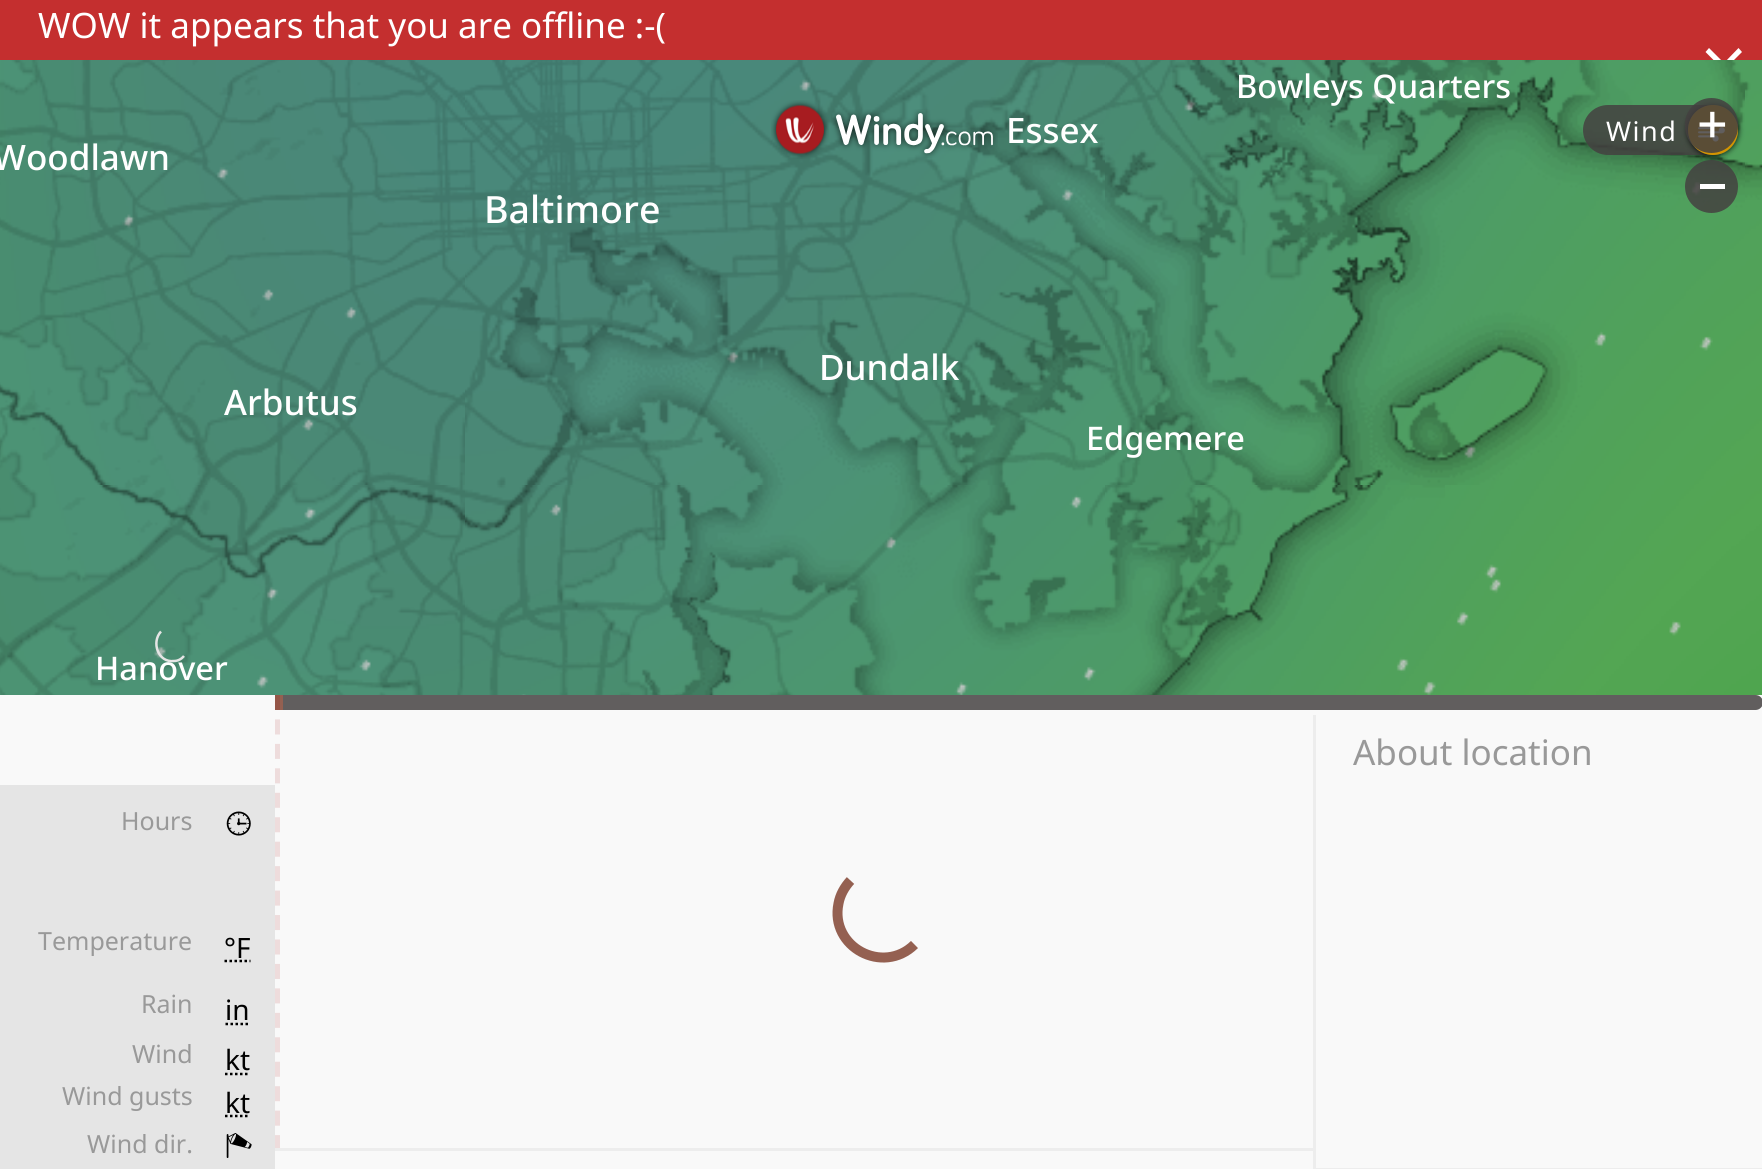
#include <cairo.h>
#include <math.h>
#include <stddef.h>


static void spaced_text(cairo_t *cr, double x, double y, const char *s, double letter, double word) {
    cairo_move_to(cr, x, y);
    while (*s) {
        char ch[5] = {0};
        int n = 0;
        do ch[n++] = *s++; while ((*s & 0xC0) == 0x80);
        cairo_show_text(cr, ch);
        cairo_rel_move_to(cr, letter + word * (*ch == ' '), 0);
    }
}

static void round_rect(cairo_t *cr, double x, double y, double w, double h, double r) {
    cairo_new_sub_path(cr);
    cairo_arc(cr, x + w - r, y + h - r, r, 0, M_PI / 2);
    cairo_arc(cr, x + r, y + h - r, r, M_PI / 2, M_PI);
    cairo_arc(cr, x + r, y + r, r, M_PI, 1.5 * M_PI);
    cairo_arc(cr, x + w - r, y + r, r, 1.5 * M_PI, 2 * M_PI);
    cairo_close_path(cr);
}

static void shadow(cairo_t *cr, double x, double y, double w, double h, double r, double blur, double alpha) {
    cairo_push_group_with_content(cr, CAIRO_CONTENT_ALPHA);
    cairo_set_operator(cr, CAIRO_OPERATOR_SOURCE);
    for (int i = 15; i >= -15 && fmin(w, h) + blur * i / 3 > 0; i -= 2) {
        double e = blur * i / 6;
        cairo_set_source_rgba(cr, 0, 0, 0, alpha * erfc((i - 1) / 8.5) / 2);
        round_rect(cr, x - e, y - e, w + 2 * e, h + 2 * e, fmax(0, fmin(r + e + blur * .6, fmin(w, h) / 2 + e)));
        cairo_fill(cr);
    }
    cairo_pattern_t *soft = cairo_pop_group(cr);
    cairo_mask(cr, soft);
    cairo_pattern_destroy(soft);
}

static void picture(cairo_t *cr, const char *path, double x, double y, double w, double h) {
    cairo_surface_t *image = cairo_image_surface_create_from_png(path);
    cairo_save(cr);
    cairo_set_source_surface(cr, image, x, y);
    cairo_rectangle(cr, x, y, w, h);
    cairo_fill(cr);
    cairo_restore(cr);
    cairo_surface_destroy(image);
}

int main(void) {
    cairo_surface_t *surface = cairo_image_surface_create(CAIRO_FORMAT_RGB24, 1762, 1169);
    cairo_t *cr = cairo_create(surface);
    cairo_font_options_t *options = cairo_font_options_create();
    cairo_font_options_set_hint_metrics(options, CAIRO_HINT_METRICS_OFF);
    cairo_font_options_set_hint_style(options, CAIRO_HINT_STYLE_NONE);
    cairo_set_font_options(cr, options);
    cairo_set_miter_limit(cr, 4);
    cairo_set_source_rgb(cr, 1, 1, 1);
    cairo_paint(cr);
    cairo_set_source_rgb(cr, 0.769, 0.184, 0.184);
    cairo_rectangle(cr, 0, 0, 1762, 60);
    cairo_fill(cr);
    cairo_select_font_face(cr, "Noto Sans", CAIRO_FONT_SLANT_NORMAL, CAIRO_FONT_WEIGHT_NORMAL);
    cairo_set_font_size(cr, 35);
    cairo_set_source_rgb(cr, 1, 1, 1);
    cairo_move_to(cr, 38, 38);
    cairo_show_text(cr, "WOW it appears that you are offline :-(");
    cairo_save(cr);
    cairo_rectangle(cr, 0, 0, 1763, 60);
    cairo_clip(cr);
    cairo_new_path(cr);
    cairo_move_to(cr, 1742, 52);
    cairo_line_to(cr, 1738.5, 48);
    cairo_line_to(cr, 1724, 63);
    cairo_line_to(cr, 1709, 48);
    cairo_line_to(cr, 1705.5, 52);
    cairo_line_to(cr, 1720, 66.5);
    cairo_line_to(cr, 1705.5, 81);
    cairo_line_to(cr, 1709, 84.5);
    cairo_line_to(cr, 1724, 70);
    cairo_line_to(cr, 1738.5, 84.5);
    cairo_line_to(cr, 1742, 81);
    cairo_line_to(cr, 1727.5, 66.5);
    cairo_close_path(cr);
    cairo_fill(cr);
    cairo_restore(cr);
    picture(cr, "img1.png", 0, 60, 465, 425);
    picture(cr, "img2.png", 465, 60, 640, 425);
    picture(cr, "img3.png", 1105, 60, 640, 425);
    picture(cr, "img4.png", 1745, 60, 17, 425);
    picture(cr, "img5.png", 0, 485, 465, 210);
    picture(cr, "img6.png", 465, 485, 640, 210);
    picture(cr, "img7.png", 1105, 485, 640, 210);
    picture(cr, "img8.png", 1745, 485, 17, 210);
    picture(cr, "img16.png", 122, 79, 1591, 616);
    picture(cr, "img9.png", 0, 60, 465, 425);
    picture(cr, "img10.png", 465, 60, 640, 425);
    picture(cr, "img11.png", 1105, 60, 640, 425);
    picture(cr, "img12.png", 1745, 81, 17, 119);
    picture(cr, "img13.png", 0, 485, 465, 210);
    picture(cr, "img14.png", 465, 485, 640, 210);
    picture(cr, "img15.png", 1105, 485, 340, 210);
    cairo_select_font_face(cr, "Noto Sans Medium", CAIRO_FONT_SLANT_NORMAL, CAIRO_FONT_WEIGHT_NORMAL);
    cairo_move_to(cr, -7, 170);
    cairo_show_text(cr, "Woodlawn");
    cairo_move_to(cr, 224, 415);
    cairo_show_text(cr, "Arbutus");
    cairo_move_to(cr, 1006, 143);
    cairo_show_text(cr, "Essex");
    cairo_set_font_size(cr, 37.5);
    cairo_move_to(cr, 484, 223);
    cairo_show_text(cr, "Baltimore");
    cairo_set_font_size(cr, 35);
    cairo_move_to(cr, 819, 380);
    cairo_show_text(cr, "Dundalk");
    cairo_set_font_size(cr, 32.5);
    cairo_move_to(cr, 1236, 98);
    cairo_show_text(cr, "Bowleys Quarters");
    cairo_move_to(cr, 1086, 450);
    cairo_show_text(cr, "Edgemere");
    cairo_move_to(cr, 95, 680);
    cairo_show_text(cr, "Hanover");
    cairo_set_source_rgba(cr, 0.267, 0.255, 0.255, 0.84);
    round_rect(cr, 1583, 105, 155, 50, 25);
    cairo_fill(cr);
    cairo_save(cr);
    cairo_set_fill_rule(cr, CAIRO_FILL_RULE_EVEN_ODD);
    cairo_new_path(cr);
    cairo_move_to(cr, 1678, 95);
    cairo_line_to(cr, 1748, 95);
    cairo_line_to(cr, 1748, 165);
    cairo_line_to(cr, 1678, 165);
    cairo_close_path(cr);
    cairo_move_to(cr, 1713, 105);
    cairo_curve_to(cr, 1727, 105, 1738, 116, 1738, 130);
    cairo_curve_to(cr, 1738, 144, 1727, 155, 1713, 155);
    cairo_curve_to(cr, 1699, 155, 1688, 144, 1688, 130);
    cairo_curve_to(cr, 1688, 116, 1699, 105, 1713, 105);
    cairo_close_path(cr);
    cairo_clip(cr);
    cairo_set_source_rgb(cr, 0, 0, 0);
    shadow(cr, 1688, 105, 50, 50, 25, 3, 1);
    cairo_restore(cr);
    cairo_set_source_rgb(cr, 0.831, 0.584, 0);
    cairo_arc(cr, 1713, 130, 25, 0, 2 * M_PI);
    cairo_fill(cr);
    picture(cr, "img20.png", 1698, 126, 27, 16);
    cairo_set_source_rgba(cr, 0.267, 0.255, 0.255, 0.84);
    round_rect(cr, 1685, 98, 53, 55, 26.5);
    cairo_fill(cr);
    picture(cr, "img17.png", 1699, 111, 27, 27);
    cairo_arc(cr, 1711.5, 186.5, 26.5, 0, 2 * M_PI);
    cairo_fill(cr);
    cairo_set_source_rgb(cr, 1, 1, 1);
    cairo_rectangle(cr, 1700, 184, 25, 5);
    cairo_fill(cr);
    picture(cr, "img18.png", 771, 100, 58, 59);
    picture(cr, "img19.png", 831, 109, 167, 49);
    cairo_select_font_face(cr, "Noto Sans", CAIRO_FONT_SLANT_NORMAL, CAIRO_FONT_WEIGHT_NORMAL);
    cairo_set_font_size(cr, 27);
    spaced_text(cr, 1606, 141, "Wind", 1.5, 0);
    cairo_new_path(cr);
    cairo_move_to(cr, 184, 656);
    cairo_curve_to(cr, 181.5, 659, 178, 661, 174, 661);
    cairo_curve_to(cr, 158, 663, 151, 642, 161, 631.5);
    cairo_set_source_rgb(cr, 0.898, 0.898, 0.898);
    cairo_set_line_width(cr, 2.5);
    cairo_stroke(cr);
    cairo_set_source_rgb(cr, 0.973, 0.973, 0.973);
    cairo_rectangle(cr, 0, 695, 1762, 474);
    cairo_fill(cr);
    cairo_set_source_rgb(cr, 0.38, 0.369, 0.369);
    round_rect(cr, 275, 695, 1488, 15, 7.5);
    cairo_fill(cr);
    cairo_set_source_rgb(cr, 0.58, 0.376, 0.318);
    cairo_rectangle(cr, 275, 695, 8, 15);
    cairo_fill(cr);
    cairo_new_path(cr);
    cairo_move_to(cr, 277.5, 695);
    cairo_line_to(cr, 277.5, 1150);
    cairo_set_source_rgba(cr, 0.616, 0.012, 0, 0.12);
    cairo_set_line_width(cr, 5);
    cairo_set_dash(cr, (double[]){15, 9.45}, 2, 0);
    cairo_stroke(cr);
    cairo_set_source_rgb(cr, 0.929, 0.929, 0.929);
    cairo_rectangle(cr, 1313, 1168, 449, 1);
    cairo_fill(cr);
    cairo_rectangle(cr, 1313, 715, 3, 454);
    cairo_fill(cr);
    cairo_rectangle(cr, 275, 1148, 1040, 3);
    cairo_fill(cr);
    cairo_set_font_size(cr, 35);
    cairo_set_source_rgb(cr, 0.6, 0.6, 0.6);
    cairo_move_to(cr, 1353, 765);
    cairo_show_text(cr, "About location");
    cairo_set_source_rgb(cr, 0.898, 0.898, 0.898);
    cairo_rectangle(cr, 0, 785, 275, 384);
    cairo_fill(cr);
    cairo_set_font_size(cr, 25);
    cairo_set_source_rgb(cr, 0.6, 0.6, 0.6);
    cairo_move_to(cr, 121, 830);
    cairo_show_text(cr, "Hours");
    picture(cr, "img21.png", 226, 811, 25, 25);
    cairo_move_to(cr, 38, 950);
    cairo_show_text(cr, "Temperature");
    cairo_set_font_size(cr, 28);
    cairo_set_source_rgb(cr, 0, 0, 0);
    cairo_move_to(cr, 224, 958);
    cairo_show_text(cr, "°F");
    cairo_new_path(cr);
    cairo_move_to(cr, 224.5, 961);
    cairo_line_to(cr, 250.5, 961);
    cairo_set_line_width(cr, 2.5);
    cairo_set_dash(cr, (double[]){2.5, 2.5}, 2, 0);
    cairo_stroke(cr);
    cairo_set_font_size(cr, 25);
    cairo_set_source_rgb(cr, 0.6, 0.6, 0.6);
    cairo_move_to(cr, 141, 1013);
    cairo_show_text(cr, "Rain");
    cairo_set_font_size(cr, 28);
    cairo_set_source_rgb(cr, 0, 0, 0);
    cairo_move_to(cr, 225, 1020);
    cairo_show_text(cr, "in");
    cairo_new_path(cr);
    cairo_move_to(cr, 225.5, 1024);
    cairo_line_to(cr, 249.5, 1024);
    cairo_stroke(cr);
    cairo_set_font_size(cr, 25);
    cairo_set_source_rgb(cr, 0.6, 0.6, 0.6);
    cairo_move_to(cr, 132, 1063);
    cairo_show_text(cr, "Wind");
    cairo_set_font_size(cr, 28);
    cairo_set_source_rgb(cr, 0, 0, 0);
    cairo_move_to(cr, 225, 1070);
    cairo_show_text(cr, "kt");
    cairo_new_path(cr);
    cairo_move_to(cr, 225, 1074);
    cairo_line_to(cr, 250, 1074);
    cairo_stroke(cr);
    cairo_set_font_size(cr, 25);
    cairo_set_source_rgb(cr, 0.6, 0.6, 0.6);
    cairo_move_to(cr, 62, 1105);
    cairo_show_text(cr, "Wind gusts");
    cairo_set_font_size(cr, 28);
    cairo_set_source_rgb(cr, 0, 0, 0);
    cairo_move_to(cr, 225, 1113);
    cairo_show_text(cr, "kt");
    cairo_new_path(cr);
    cairo_move_to(cr, 225, 1116);
    cairo_line_to(cr, 250, 1116);
    cairo_stroke(cr);
    cairo_set_font_size(cr, 25);
    cairo_set_source_rgb(cr, 0.6, 0.6, 0.6);
    cairo_move_to(cr, 87, 1153);
    cairo_show_text(cr, "Wind dir.");
    picture(cr, "img22.png", 226, 1133, 26, 25);
    cairo_new_path(cr);
    cairo_move_to(cr, 914.5, 944.5);
    cairo_curve_to(cr, 883, 975.5, 829.5, 947, 838.5, 903.5);
    cairo_curve_to(cr, 840, 895, 844.5, 887, 850.5, 880.5);
    cairo_set_source_rgb(cr, 0.58, 0.376, 0.318);
    cairo_set_line_width(cr, 10);
    cairo_set_dash(cr, NULL, 0, 0);
    cairo_stroke(cr);
    cairo_surface_write_to_png(surface, "page.png");
    cairo_font_options_destroy(options);
    cairo_destroy(cr);
    cairo_surface_destroy(surface);
    return 0;
}
